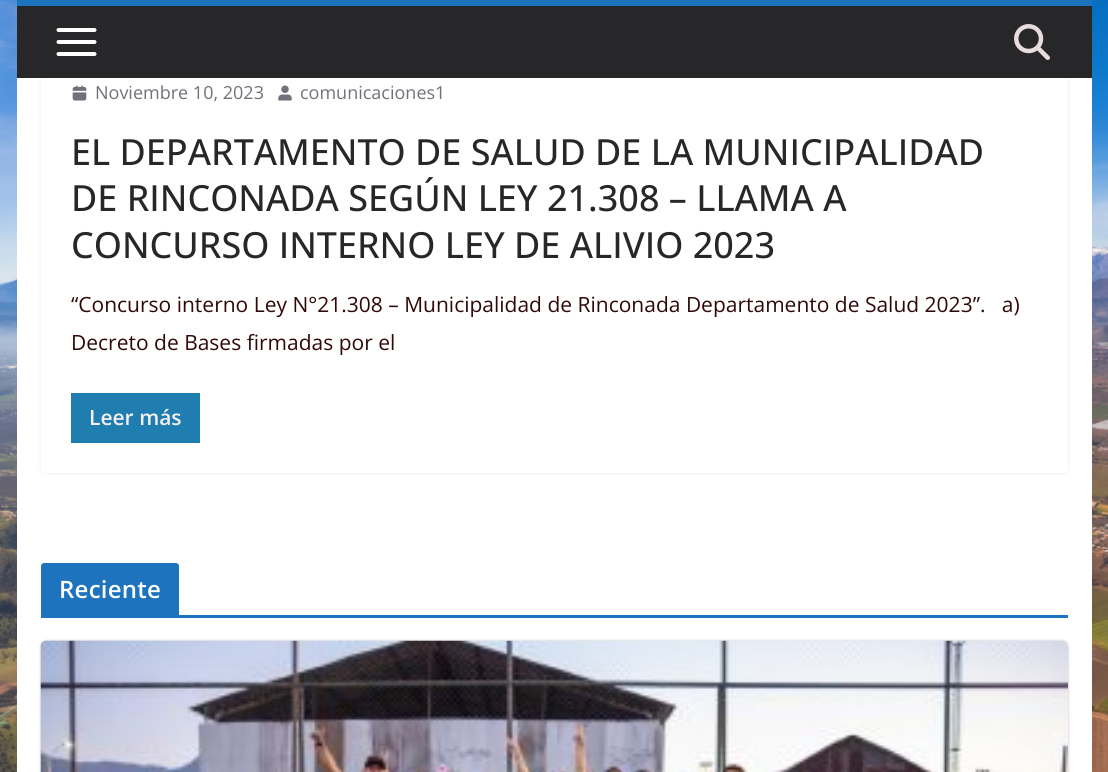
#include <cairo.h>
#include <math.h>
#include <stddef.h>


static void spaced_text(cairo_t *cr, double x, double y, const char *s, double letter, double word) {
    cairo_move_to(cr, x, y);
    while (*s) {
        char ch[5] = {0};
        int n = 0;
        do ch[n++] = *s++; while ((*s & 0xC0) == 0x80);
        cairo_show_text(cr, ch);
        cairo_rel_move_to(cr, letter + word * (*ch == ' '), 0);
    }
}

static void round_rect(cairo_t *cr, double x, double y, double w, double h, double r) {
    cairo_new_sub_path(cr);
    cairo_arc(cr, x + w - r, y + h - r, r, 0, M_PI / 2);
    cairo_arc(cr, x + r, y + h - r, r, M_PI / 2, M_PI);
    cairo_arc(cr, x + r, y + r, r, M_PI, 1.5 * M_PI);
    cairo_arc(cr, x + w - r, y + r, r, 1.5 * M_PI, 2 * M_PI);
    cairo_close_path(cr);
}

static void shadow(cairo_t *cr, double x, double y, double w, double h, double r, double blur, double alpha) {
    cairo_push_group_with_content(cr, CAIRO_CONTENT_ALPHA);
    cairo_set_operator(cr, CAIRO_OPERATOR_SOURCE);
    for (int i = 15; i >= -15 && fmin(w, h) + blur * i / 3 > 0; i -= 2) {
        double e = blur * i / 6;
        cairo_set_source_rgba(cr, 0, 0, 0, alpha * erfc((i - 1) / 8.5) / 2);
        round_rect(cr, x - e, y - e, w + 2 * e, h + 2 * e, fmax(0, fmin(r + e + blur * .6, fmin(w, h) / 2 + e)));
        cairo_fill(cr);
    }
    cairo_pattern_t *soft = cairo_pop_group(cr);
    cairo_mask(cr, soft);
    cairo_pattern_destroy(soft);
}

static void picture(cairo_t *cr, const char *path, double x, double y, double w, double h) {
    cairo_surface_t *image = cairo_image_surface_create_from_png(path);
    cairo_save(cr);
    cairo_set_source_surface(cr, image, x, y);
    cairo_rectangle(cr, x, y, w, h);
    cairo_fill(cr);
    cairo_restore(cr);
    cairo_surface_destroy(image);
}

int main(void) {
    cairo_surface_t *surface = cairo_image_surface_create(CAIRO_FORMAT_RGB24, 1108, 772);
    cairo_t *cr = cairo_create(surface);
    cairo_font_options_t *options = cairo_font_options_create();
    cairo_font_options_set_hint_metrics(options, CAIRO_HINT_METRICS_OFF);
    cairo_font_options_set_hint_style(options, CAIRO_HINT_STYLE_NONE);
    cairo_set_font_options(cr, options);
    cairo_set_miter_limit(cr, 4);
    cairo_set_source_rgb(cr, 1, 1, 1);
    cairo_paint(cr);
    picture(cr, "img1.png", 0, 0, 1108, 772);
    cairo_set_source_rgb(cr, 1, 1, 1);
    cairo_rectangle(cr, 17, 78, 1075, 694);
    cairo_fill(cr);
    cairo_save(cr);
    cairo_set_fill_rule(cr, CAIRO_FILL_RULE_EVEN_ODD);
    cairo_new_path(cr);
    cairo_move_to(cr, 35, 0);
    cairo_line_to(cr, 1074, 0);
    cairo_line_to(cr, 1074, 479);
    cairo_line_to(cr, 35, 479);
    cairo_close_path(cr);
    cairo_move_to(cr, 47, -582);
    cairo_line_to(cr, 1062, -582);
    cairo_curve_to(cr, 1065.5, -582, 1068, -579.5, 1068, -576);
    cairo_line_to(cr, 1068, 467);
    cairo_curve_to(cr, 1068, 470.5, 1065.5, 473, 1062, 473);
    cairo_line_to(cr, 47, 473);
    cairo_curve_to(cr, 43.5, 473, 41, 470.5, 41, 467);
    cairo_line_to(cr, 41, -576);
    cairo_curve_to(cr, 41, -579.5, 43.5, -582, 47, -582);
    cairo_close_path(cr);
    cairo_clip(cr);
    cairo_set_source_rgb(cr, 0.91, 0.902, 0.906);
    shadow(cr, 41, -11, 1027, 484, 6, 1.5, 1);
    cairo_restore(cr);
    cairo_set_source_rgb(cr, 0.153, 0.153, 0.165);
    cairo_rectangle(cr, 17, 6, 1075, 72);
    cairo_fill(cr);
    cairo_set_source_rgb(cr, 0.118, 0.451, 0.745);
    cairo_rectangle(cr, 17, 0, 1075, 6);
    cairo_fill(cr);
    picture(cr, "img2.png", 56, 28, 41, 28);
    picture(cr, "img3.png", 1014, 24, 36, 36);
    picture(cr, "img4.png", 72, 85, 15, 16);
    cairo_select_font_face(cr, "Open Sans", CAIRO_FONT_SLANT_NORMAL, CAIRO_FONT_WEIGHT_NORMAL);
    cairo_set_font_size(cr, 18);
    cairo_set_source_rgb(cr, 0.443, 0.443, 0.478);
    cairo_move_to(cr, 95, 99);
    cairo_show_text(cr, "Noviembre 10, 2023");
    picture(cr, "img5.png", 278, 85, 14, 16);
    cairo_move_to(cr, 300, 99);
    cairo_show_text(cr, "comunicaciones1");
    cairo_select_font_face(cr, "Open Sans Medium", CAIRO_FONT_SLANT_NORMAL, CAIRO_FONT_WEIGHT_NORMAL);
    cairo_set_font_size(cr, 36);
    cairo_set_source_rgb(cr, 0.153, 0.153, 0.165);
    cairo_move_to(cr, 71, 165);
    cairo_show_text(cr, "EL DEPARTAMENTO DE SALUD DE LA MUNICIPALIDAD");
    cairo_move_to(cr, 71, 211);
    cairo_show_text(cr, "DE RINCONADA SEGÚN LEY 21.308 – LLAMA A");
    cairo_move_to(cr, 71, 258);
    cairo_show_text(cr, "CONCURSO INTERNO LEY DE ALIVIO 2023");
    cairo_select_font_face(cr, "Open Sans", CAIRO_FONT_SLANT_NORMAL, CAIRO_FONT_WEIGHT_NORMAL);
    cairo_set_font_size(cr, 21);
    cairo_set_source_rgb(cr, 0.192, 0.035, 0.035);
    cairo_move_to(cr, 71, 312);
    cairo_show_text(cr, "“Concurso interno Ley N°21.308 – Municipalidad de Rinconada Departamento de Salud 2023”.   a)");
    cairo_move_to(cr, 71, 350);
    cairo_show_text(cr, "Decreto de Bases firmadas por el");
    cairo_set_source_rgb(cr, 0.118, 0.451, 0.745);
    cairo_rectangle(cr, 71, 393, 129, 50);
    cairo_fill(cr);
    cairo_set_source_rgb(cr, 0.125, 0.49, 0.686);
    round_rect(cr, 71, 393, 129, 50, 3);
    cairo_fill(cr);
    cairo_select_font_face(cr, "Open Sans SemiBold", CAIRO_FONT_SLANT_NORMAL, CAIRO_FONT_WEIGHT_NORMAL);
    cairo_set_source_rgb(cr, 0.961, 0.941, 0.941);
    cairo_move_to(cr, 89, 425);
    cairo_show_text(cr, "Leer más");
    cairo_set_source_rgb(cr, 0.118, 0.451, 0.745);
    cairo_rectangle(cr, 41, 615, 1027, 3);
    cairo_fill(cr);
    cairo_new_path(cr);
    cairo_move_to(cr, 44, 563);
    cairo_line_to(cr, 176, 563);
    cairo_curve_to(cr, 177.5, 563, 179, 564.5, 179, 566);
    cairo_line_to(cr, 179, 615);
    cairo_line_to(cr, 41, 615);
    cairo_line_to(cr, 41, 566);
    cairo_curve_to(cr, 41, 564.5, 42.5, 563, 44, 563);
    cairo_close_path(cr);
    cairo_fill(cr);
    cairo_set_font_size(cr, 24);
    cairo_set_source_rgb(cr, 1, 1, 1);
    spaced_text(cr, 59, 598, "Reciente", 0.25, 0);
    cairo_set_source_rgb(cr, 0, 0, 0);
    shadow(cr, 41, 641, 1027, 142, 6, 1.5, 0.24);
    picture(cr, "img6.png", 40, 640, 1028, 132);
    cairo_surface_write_to_png(surface, "page.png");
    cairo_font_options_destroy(options);
    cairo_destroy(cr);
    cairo_surface_destroy(surface);
    return 0;
}
